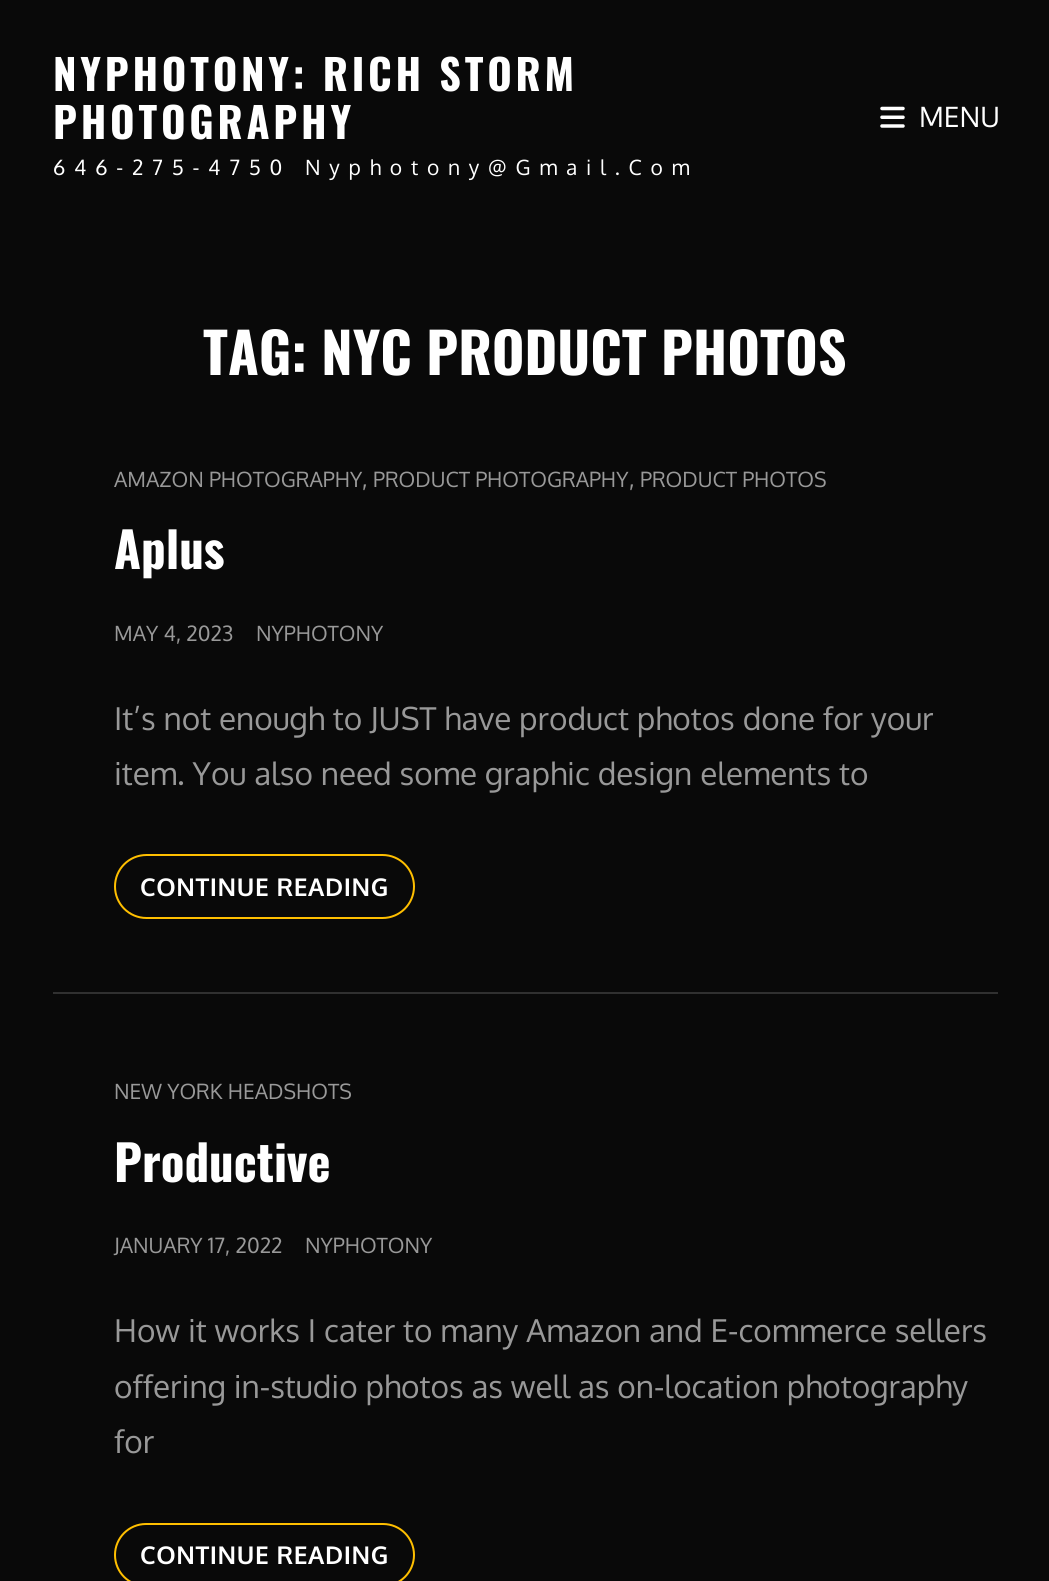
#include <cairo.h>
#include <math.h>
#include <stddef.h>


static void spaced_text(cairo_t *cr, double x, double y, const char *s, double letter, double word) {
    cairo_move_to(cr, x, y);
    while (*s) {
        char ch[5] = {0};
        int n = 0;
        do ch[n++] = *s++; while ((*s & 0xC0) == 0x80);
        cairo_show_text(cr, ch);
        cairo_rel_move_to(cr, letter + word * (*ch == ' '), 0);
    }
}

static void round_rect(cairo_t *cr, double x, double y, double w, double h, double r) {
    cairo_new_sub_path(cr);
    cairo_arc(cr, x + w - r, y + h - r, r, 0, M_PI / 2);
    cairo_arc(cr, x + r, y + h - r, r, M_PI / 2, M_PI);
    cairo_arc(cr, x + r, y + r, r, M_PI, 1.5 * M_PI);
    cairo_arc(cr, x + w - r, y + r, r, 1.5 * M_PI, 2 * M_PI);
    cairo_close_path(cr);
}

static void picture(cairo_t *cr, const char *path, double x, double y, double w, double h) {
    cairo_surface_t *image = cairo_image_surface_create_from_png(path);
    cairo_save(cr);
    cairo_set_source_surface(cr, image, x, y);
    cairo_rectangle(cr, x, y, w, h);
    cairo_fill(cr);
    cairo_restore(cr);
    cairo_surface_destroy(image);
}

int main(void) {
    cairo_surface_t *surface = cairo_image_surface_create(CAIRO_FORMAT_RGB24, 1049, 1581);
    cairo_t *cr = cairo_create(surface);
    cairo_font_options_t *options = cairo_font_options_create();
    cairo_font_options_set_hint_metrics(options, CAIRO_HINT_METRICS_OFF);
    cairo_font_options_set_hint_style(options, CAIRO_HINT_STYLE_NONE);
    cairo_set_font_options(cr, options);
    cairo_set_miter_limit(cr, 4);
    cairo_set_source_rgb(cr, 0.039, 0.039, 0.039);
    cairo_paint(cr);
    cairo_select_font_face(cr, "Oswald", CAIRO_FONT_SLANT_NORMAL, CAIRO_FONT_WEIGHT_BOLD);
    cairo_set_font_size(cr, 42);
    cairo_set_source_rgb(cr, 1, 1, 1);
    spaced_text(cr, 53, 91, "NYPHOTONY: RICH STORM", 3.75, 0);
    spaced_text(cr, 53, 139, "PHOTOGRAPHY", 3.75, 0);
    cairo_select_font_face(cr, "Oxygen", CAIRO_FONT_SLANT_NORMAL, CAIRO_FONT_WEIGHT_NORMAL);
    cairo_set_font_size(cr, 21);
    spaced_text(cr, 53, 175, "646-275-4750 Nyphotony@Gmail.Com", 8.75, 0);
    picture(cr, "img1.png", 880, 106, 25, 22);
    cairo_set_font_size(cr, 28);
    cairo_move_to(cr, 919, 127);
    cairo_show_text(cr, "MENU");
    cairo_select_font_face(cr, "Oswald", CAIRO_FONT_SLANT_NORMAL, CAIRO_FONT_WEIGHT_BOLD);
    cairo_set_font_size(cr, 56);
    cairo_move_to(cr, 203, 375);
    cairo_show_text(cr, "TAG: NYC PRODUCT PHOTOS");
    cairo_set_source_rgb(cr, 0.188, 0.188, 0.188);
    cairo_rectangle(cr, 53, 992, 945, 2);
    cairo_fill(cr);
    cairo_select_font_face(cr, "Oxygen", CAIRO_FONT_SLANT_NORMAL, CAIRO_FONT_WEIGHT_NORMAL);
    cairo_set_font_size(cr, 21);
    cairo_set_source_rgb(cr, 0.6, 0.6, 0.6);
    cairo_move_to(cr, 114, 487);
    cairo_show_text(cr, "AMAZON PHOTOGRAPHY");
    cairo_set_font_size(cr, 23);
    cairo_move_to(cr, 362, 487);
    cairo_show_text(cr, ",");
    cairo_set_font_size(cr, 21);
    cairo_move_to(cr, 373, 487);
    cairo_show_text(cr, "PRODUCT PHOTOGRAPHY");
    cairo_set_font_size(cr, 23);
    cairo_move_to(cr, 629, 487);
    cairo_show_text(cr, ",");
    cairo_set_font_size(cr, 21);
    cairo_move_to(cr, 640, 487);
    cairo_show_text(cr, "PRODUCT PHOTOS");
    cairo_select_font_face(cr, "Oswald", CAIRO_FONT_SLANT_NORMAL, CAIRO_FONT_WEIGHT_BOLD);
    cairo_set_font_size(cr, 49);
    cairo_set_source_rgb(cr, 1, 1, 1);
    cairo_move_to(cr, 114, 569);
    cairo_show_text(cr, "Aplus");
    cairo_select_font_face(cr, "Oxygen", CAIRO_FONT_SLANT_NORMAL, CAIRO_FONT_WEIGHT_NORMAL);
    cairo_set_font_size(cr, 21);
    cairo_set_source_rgb(cr, 0.6, 0.6, 0.6);
    cairo_move_to(cr, 114, 641);
    cairo_show_text(cr, "MAY 4, 2023");
    cairo_move_to(cr, 256, 641);
    cairo_show_text(cr, "NYPHOTONY");
    cairo_set_font_size(cr, 31.5);
    cairo_move_to(cr, 114, 730);
    cairo_show_text(cr, "It’s not enough to JUST have product photos done for your");
    cairo_move_to(cr, 114, 785);
    cairo_show_text(cr, "item. You also need some graphic design elements to");
    round_rect(cr, 115, 855, 299, 63, 31.5);
    cairo_set_source_rgb(cr, 1, 0.749, 0);
    cairo_stroke(cr);
    cairo_select_font_face(cr, "Oxygen", CAIRO_FONT_SLANT_NORMAL, CAIRO_FONT_WEIGHT_BOLD);
    cairo_set_font_size(cr, 24.5);
    cairo_set_source_rgb(cr, 1, 1, 1);
    spaced_text(cr, 140, 896, "CONTINUE READING", 0.6, 0);
    cairo_select_font_face(cr, "Oxygen", CAIRO_FONT_SLANT_NORMAL, CAIRO_FONT_WEIGHT_NORMAL);
    cairo_set_font_size(cr, 21);
    cairo_set_source_rgb(cr, 0.6, 0.6, 0.6);
    cairo_move_to(cr, 114, 1099);
    cairo_show_text(cr, "NEW YORK HEADSHOTS");
    cairo_select_font_face(cr, "Oswald", CAIRO_FONT_SLANT_NORMAL, CAIRO_FONT_WEIGHT_BOLD);
    cairo_set_font_size(cr, 49);
    cairo_set_source_rgb(cr, 1, 1, 1);
    cairo_move_to(cr, 114, 1182);
    cairo_show_text(cr, "Productive");
    cairo_select_font_face(cr, "Oxygen", CAIRO_FONT_SLANT_NORMAL, CAIRO_FONT_WEIGHT_NORMAL);
    cairo_set_font_size(cr, 21);
    cairo_set_source_rgb(cr, 0.6, 0.6, 0.6);
    cairo_move_to(cr, 114, 1253);
    cairo_show_text(cr, "JANUARY 17, 2022");
    cairo_move_to(cr, 305, 1253);
    cairo_show_text(cr, "NYPHOTONY");
    cairo_set_font_size(cr, 31.5);
    cairo_move_to(cr, 114, 1342);
    cairo_show_text(cr, "How it works I cater to many Amazon and E-commerce sellers");
    cairo_move_to(cr, 114, 1398);
    cairo_show_text(cr, "offering in-studio photos as well as on-location photography");
    cairo_move_to(cr, 114, 1453);
    cairo_show_text(cr, "for");
    round_rect(cr, 115, 1524, 299, 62, 31);
    cairo_set_source_rgb(cr, 1, 0.749, 0);
    cairo_stroke(cr);
    cairo_select_font_face(cr, "Oxygen", CAIRO_FONT_SLANT_NORMAL, CAIRO_FONT_WEIGHT_BOLD);
    cairo_set_font_size(cr, 24.5);
    cairo_set_source_rgb(cr, 1, 1, 1);
    spaced_text(cr, 140, 1564, "CONTINUE READING", 0.6, 0);
    cairo_surface_write_to_png(surface, "page.png");
    cairo_font_options_destroy(options);
    cairo_destroy(cr);
    cairo_surface_destroy(surface);
    return 0;
}
